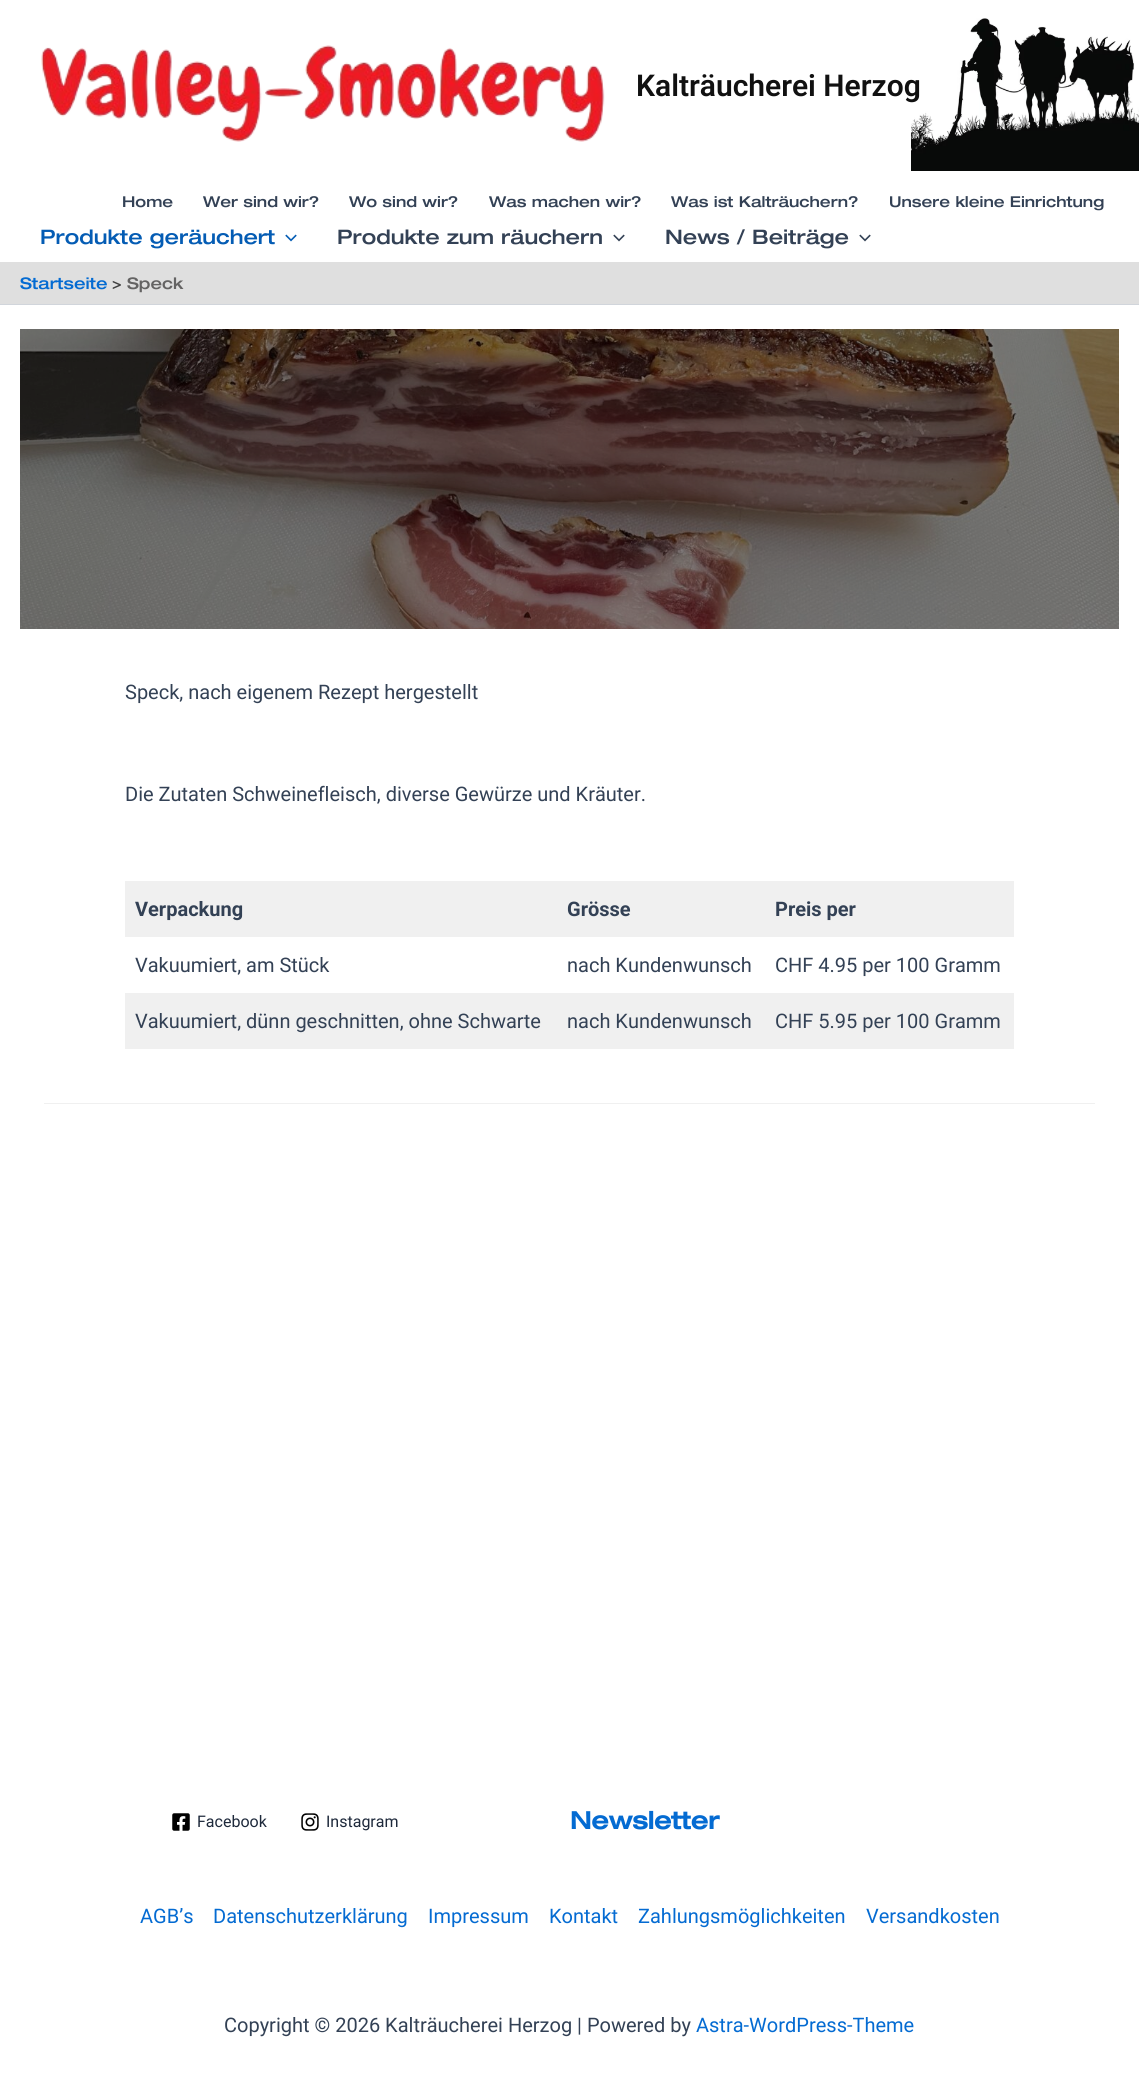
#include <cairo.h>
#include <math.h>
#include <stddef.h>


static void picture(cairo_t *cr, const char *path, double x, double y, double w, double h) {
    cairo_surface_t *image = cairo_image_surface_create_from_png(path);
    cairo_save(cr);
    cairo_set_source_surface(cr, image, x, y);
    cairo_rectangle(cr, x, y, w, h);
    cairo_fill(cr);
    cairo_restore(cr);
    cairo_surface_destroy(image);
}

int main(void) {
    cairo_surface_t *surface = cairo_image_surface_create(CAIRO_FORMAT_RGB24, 1139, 2075);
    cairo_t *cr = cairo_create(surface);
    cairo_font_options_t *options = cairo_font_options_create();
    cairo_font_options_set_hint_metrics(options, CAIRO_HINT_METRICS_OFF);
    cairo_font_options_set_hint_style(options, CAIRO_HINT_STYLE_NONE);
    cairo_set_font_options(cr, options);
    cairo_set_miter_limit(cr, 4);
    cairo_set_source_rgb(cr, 1, 1, 1);
    cairo_paint(cr);
    picture(cr, "img1.png", 911, 18, 228, 153);
    picture(cr, "img2.png", 41, 45, 564, 97);
    cairo_select_font_face(cr, "Roboto SemiBold", CAIRO_FONT_SLANT_NORMAL, CAIRO_FONT_WEIGHT_NORMAL);
    cairo_set_font_size(cr, 30);
    cairo_set_source_rgb(cr, 0.067, 0.067, 0.067);
    cairo_move_to(cr, 636, 96);
    cairo_show_text(cr, "Kalträucherei Herzog");
    cairo_select_font_face(cr, "Helvetica Neue Medium", CAIRO_FONT_SLANT_NORMAL, CAIRO_FONT_WEIGHT_NORMAL);
    cairo_set_font_size(cr, 15);
    cairo_set_source_rgb(cr, 0.2, 0.255, 0.333);
    cairo_move_to(cr, 122, 207);
    cairo_show_text(cr, "Home");
    cairo_move_to(cr, 203, 207);
    cairo_show_text(cr, "Wer sind wir?");
    cairo_move_to(cr, 349, 207);
    cairo_show_text(cr, "Wo sind wir?");
    cairo_move_to(cr, 489, 207);
    cairo_show_text(cr, "Was machen wir?");
    cairo_move_to(cr, 671, 207);
    cairo_show_text(cr, "Was ist Kalträuchern?");
    cairo_move_to(cr, 889, 207);
    cairo_show_text(cr, "Unsere kleine Einrichtung");
    cairo_set_font_size(cr, 20);
    cairo_set_source_rgb(cr, 0.016, 0.361, 0.706);
    cairo_move_to(cr, 40, 244);
    cairo_show_text(cr, "Produkte geräuchert");
    picture(cr, "img3.png", 285, 234, 12, 8);
    cairo_set_source_rgb(cr, 0.2, 0.255, 0.333);
    cairo_move_to(cr, 337, 244);
    cairo_show_text(cr, "Produkte zum räuchern");
    picture(cr, "img4.png", 613, 234, 12, 8);
    cairo_move_to(cr, 665, 244);
    cairo_show_text(cr, "News / Beiträge");
    picture(cr, "img4.png", 859, 234, 12, 8);
    cairo_set_source_rgb(cr, 0.875, 0.875, 0.875);
    cairo_rectangle(cr, 0, 262, 1139, 42);
    cairo_fill(cr);
    cairo_set_source_rgb(cr, 0.82, 0.835, 0.859);
    cairo_rectangle(cr, 0, 304, 1139, 1);
    cairo_fill(cr);
    cairo_set_font_size(cr, 16);
    cairo_set_source_rgb(cr, 0.016, 0.42, 0.824);
    cairo_move_to(cr, 20, 289);
    cairo_show_text(cr, "Startseite");
    cairo_set_source_rgb(cr, 0.251, 0.251, 0.251);
    cairo_move_to(cr, 112, 289);
    cairo_show_text(cr, ">");
    cairo_set_source_rgb(cr, 0.392, 0.388, 0.388);
    cairo_move_to(cr, 127, 289);
    cairo_show_text(cr, "Speck");
    picture(cr, "img5.png", 20, 329, 1099, 300);
    cairo_select_font_face(cr, "Roboto", CAIRO_FONT_SLANT_NORMAL, CAIRO_FONT_WEIGHT_NORMAL);
    cairo_set_font_size(cr, 20);
    cairo_set_source_rgb(cr, 0.2, 0.255, 0.333);
    cairo_move_to(cr, 125, 699);
    cairo_show_text(cr, "Speck, nach eigenem Rezept hergestellt");
    cairo_move_to(cr, 125, 801);
    cairo_show_text(cr, "Die Zutaten Schweinefleisch, diverse Gewürze und Kräuter.");
    cairo_set_source_rgb(cr, 0.941, 0.941, 0.941);
    cairo_rectangle(cr, 44, 1103, 1051, 1);
    cairo_fill(cr);
    cairo_rectangle(cr, 125, 881, 889, 56);
    cairo_fill(cr);
    cairo_select_font_face(cr, "Roboto", CAIRO_FONT_SLANT_NORMAL, CAIRO_FONT_WEIGHT_BOLD);
    cairo_set_source_rgb(cr, 0.2, 0.255, 0.333);
    cairo_move_to(cr, 135, 916);
    cairo_show_text(cr, "Verpackung");
    cairo_move_to(cr, 567, 916);
    cairo_show_text(cr, "Grösse");
    cairo_move_to(cr, 775, 916);
    cairo_show_text(cr, "Preis per");
    cairo_select_font_face(cr, "Roboto", CAIRO_FONT_SLANT_NORMAL, CAIRO_FONT_WEIGHT_NORMAL);
    cairo_move_to(cr, 135, 972);
    cairo_show_text(cr, "Vakuumiert, am Stück");
    cairo_move_to(cr, 567, 972);
    cairo_show_text(cr, "nach Kundenwunsch");
    cairo_move_to(cr, 775, 972);
    cairo_show_text(cr, "CHF 4.95 per 100 Gramm");
    cairo_set_source_rgb(cr, 0.941, 0.941, 0.941);
    cairo_rectangle(cr, 125, 993, 889, 56);
    cairo_fill(cr);
    cairo_set_source_rgb(cr, 0.2, 0.255, 0.333);
    cairo_move_to(cr, 135, 1028);
    cairo_show_text(cr, "Vakuumiert, dünn geschnitten, ohne Schwarte");
    cairo_move_to(cr, 567, 1028);
    cairo_show_text(cr, "nach Kundenwunsch");
    cairo_move_to(cr, 775, 1028);
    cairo_show_text(cr, "CHF 5.95 per 100 Gramm");
    picture(cr, "img6.png", 172, 1813, 18, 18);
    cairo_set_font_size(cr, 16);
    cairo_set_source_rgb(cr, 0.118, 0.161, 0.231);
    cairo_move_to(cr, 197, 1827);
    cairo_show_text(cr, "Facebook");
    picture(cr, "img7.png", 301, 1813, 18, 18);
    cairo_move_to(cr, 326, 1827);
    cairo_show_text(cr, "Instagram");
    cairo_select_font_face(cr, "Helvetica Neue", CAIRO_FONT_SLANT_NORMAL, CAIRO_FONT_WEIGHT_BOLD);
    cairo_set_font_size(cr, 24);
    cairo_set_source_rgb(cr, 0.016, 0.42, 0.824);
    cairo_move_to(cr, 570, 1829);
    cairo_show_text(cr, "Newsletter");
    cairo_select_font_face(cr, "Roboto", CAIRO_FONT_SLANT_NORMAL, CAIRO_FONT_WEIGHT_NORMAL);
    cairo_set_font_size(cr, 20);
    cairo_move_to(cr, 140, 1923);
    cairo_show_text(cr, "AGB’s");
    cairo_move_to(cr, 213, 1923);
    cairo_show_text(cr, "Datenschutzerklärung");
    cairo_move_to(cr, 428, 1923);
    cairo_show_text(cr, "Impressum");
    cairo_move_to(cr, 549, 1923);
    cairo_show_text(cr, "Kontakt");
    cairo_move_to(cr, 638, 1923);
    cairo_show_text(cr, "Zahlungsmöglichkeiten");
    cairo_move_to(cr, 866, 1923);
    cairo_show_text(cr, "Versandkosten");
    cairo_set_source_rgb(cr, 0.2, 0.255, 0.333);
    cairo_move_to(cr, 224, 2032);
    cairo_show_text(cr, "Copyright © 2026 Kalträucherei Herzog | Powered by");
    cairo_set_source_rgb(cr, 0.016, 0.42, 0.824);
    cairo_move_to(cr, 696, 2032);
    cairo_show_text(cr, "Astra-WordPress-Theme");
    cairo_surface_write_to_png(surface, "page.png");
    cairo_font_options_destroy(options);
    cairo_destroy(cr);
    cairo_surface_destroy(surface);
    return 0;
}
